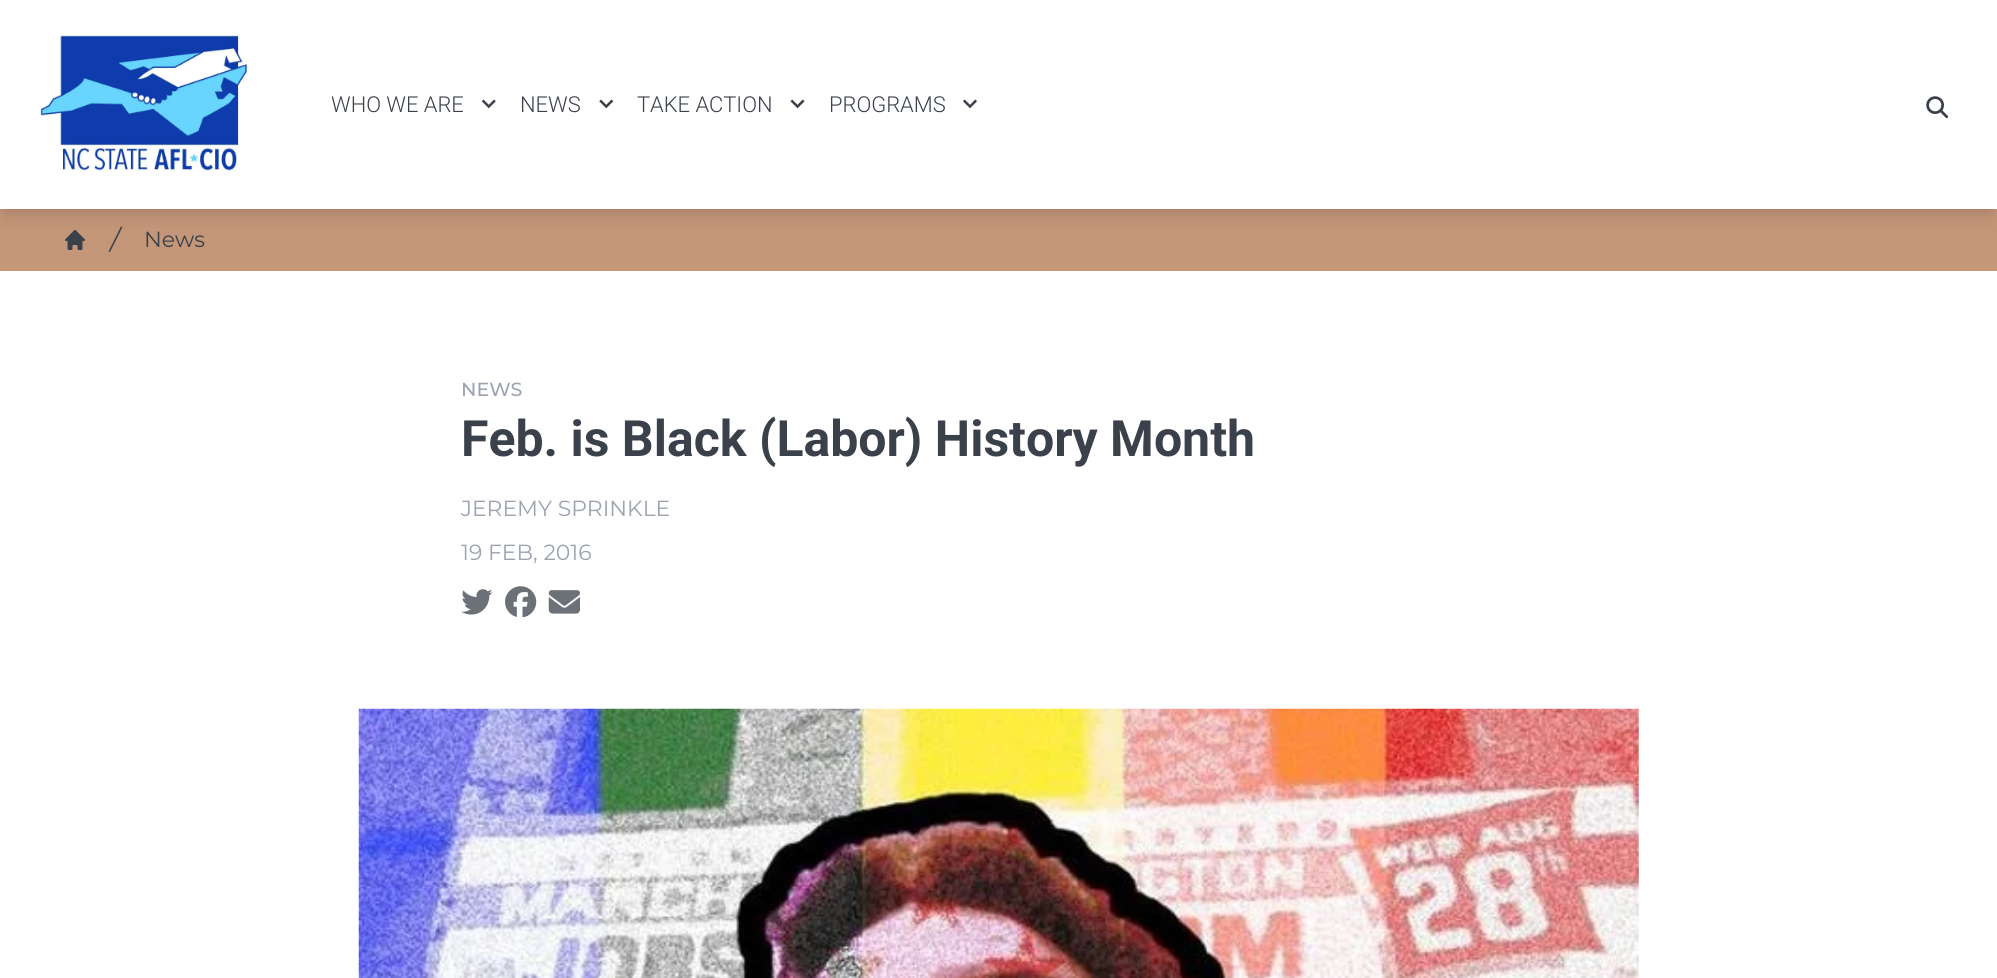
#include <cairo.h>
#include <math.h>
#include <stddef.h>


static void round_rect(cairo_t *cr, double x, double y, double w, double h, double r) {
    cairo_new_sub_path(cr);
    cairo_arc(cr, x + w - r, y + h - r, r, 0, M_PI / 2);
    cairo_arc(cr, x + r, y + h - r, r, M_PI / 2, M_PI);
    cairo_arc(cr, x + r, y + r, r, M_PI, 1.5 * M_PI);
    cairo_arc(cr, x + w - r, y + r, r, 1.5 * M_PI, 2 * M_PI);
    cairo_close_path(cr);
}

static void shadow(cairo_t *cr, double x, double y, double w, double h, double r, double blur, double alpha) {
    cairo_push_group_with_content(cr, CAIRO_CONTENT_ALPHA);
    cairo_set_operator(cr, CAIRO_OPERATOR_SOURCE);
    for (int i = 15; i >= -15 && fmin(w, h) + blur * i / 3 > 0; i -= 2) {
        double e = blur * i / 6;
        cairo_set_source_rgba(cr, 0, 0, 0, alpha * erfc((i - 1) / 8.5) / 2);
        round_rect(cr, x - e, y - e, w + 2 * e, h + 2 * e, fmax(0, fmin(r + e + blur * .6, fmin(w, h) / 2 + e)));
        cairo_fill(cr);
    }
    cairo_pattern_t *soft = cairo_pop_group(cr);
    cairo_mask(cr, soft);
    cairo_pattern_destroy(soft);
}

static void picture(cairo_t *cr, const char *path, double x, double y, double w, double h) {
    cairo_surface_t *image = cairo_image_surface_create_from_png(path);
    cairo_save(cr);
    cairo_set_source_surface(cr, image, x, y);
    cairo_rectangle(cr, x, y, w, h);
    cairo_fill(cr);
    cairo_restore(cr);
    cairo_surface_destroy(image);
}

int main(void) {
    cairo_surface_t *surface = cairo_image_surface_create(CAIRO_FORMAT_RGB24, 1997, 978);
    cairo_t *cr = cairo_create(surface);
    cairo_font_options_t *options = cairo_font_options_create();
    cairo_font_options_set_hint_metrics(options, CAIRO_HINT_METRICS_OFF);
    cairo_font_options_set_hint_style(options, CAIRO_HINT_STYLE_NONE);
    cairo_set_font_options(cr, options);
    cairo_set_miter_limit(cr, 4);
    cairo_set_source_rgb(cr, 1, 1, 1);
    cairo_paint(cr);
    cairo_set_source_rgb(cr, 0.769, 0.592, 0.475);
    cairo_rectangle(cr, 0, 209, 1997, 62);
    cairo_fill(cr);
    cairo_set_source_rgb(cr, 0, 0, 0);
    shadow(cr, 5, 10, 1988, 199, 0, 4, 0.1);
    picture(cr, "img7.png", 65, 230, 20, 20);
    cairo_set_source_rgb(cr, 0.231, 0.255, 0.294);
    cairo_new_path(cr);
    cairo_move_to(cr, 108.5, 251.5);
    cairo_line_to(cr, 121, 226.5);
    cairo_line_to(cr, 122.5, 227);
    cairo_line_to(cr, 110, 252);
    cairo_close_path(cr);
    cairo_fill(cr);
    cairo_set_source_rgb(cr, 0, 0, 0);
    shadow(cr, 4, 16, 1990, 202, 0, 9.5, 0.1);
    cairo_set_source_rgb(cr, 1, 1, 1);
    cairo_rectangle(cr, 0, 2, 1997, 207);
    cairo_fill(cr);
    picture(cr, "img1.png", 40, 35, 208, 136);
    cairo_select_font_face(cr, "Roboto Light", CAIRO_FONT_SLANT_NORMAL, CAIRO_FONT_WEIGHT_NORMAL);
    cairo_set_font_size(cr, 21.9);
    cairo_set_source_rgb(cr, 0.231, 0.255, 0.294);
    cairo_move_to(cr, 331, 112);
    cairo_show_text(cr, "WHO WE ARE");
    picture(cr, "img2.png", 481, 99, 15, 10);
    cairo_move_to(cr, 520, 112);
    cairo_show_text(cr, "NEWS");
    picture(cr, "img3.png", 599, 99, 15, 10);
    cairo_move_to(cr, 637, 112);
    cairo_show_text(cr, "TAKE ACTION");
    picture(cr, "img4.png", 790, 99, 15, 10);
    cairo_move_to(cr, 829, 112);
    cairo_show_text(cr, "PROGRAMS");
    picture(cr, "img5.png", 963, 99, 14, 10);
    picture(cr, "img6.png", 1926, 96, 23, 23);
    cairo_select_font_face(cr, "Montserrat", CAIRO_FONT_SLANT_NORMAL, CAIRO_FONT_WEIGHT_NORMAL);
    cairo_move_to(cr, 144, 247);
    cairo_show_text(cr, "News");
    cairo_select_font_face(cr, "Montserrat Medium", CAIRO_FONT_SLANT_NORMAL, CAIRO_FONT_WEIGHT_NORMAL);
    cairo_set_font_size(cr, 19);
    cairo_set_source_rgb(cr, 0.612, 0.639, 0.686);
    cairo_move_to(cr, 461, 396);
    cairo_show_text(cr, "NEWS");
    cairo_select_font_face(cr, "Roboto", CAIRO_FONT_SLANT_NORMAL, CAIRO_FONT_WEIGHT_BOLD);
    cairo_set_font_size(cr, 50);
    cairo_set_source_rgb(cr, 0.231, 0.255, 0.294);
    cairo_move_to(cr, 461, 456);
    cairo_show_text(cr, "Feb. is Black (Labor) History Month");
    cairo_select_font_face(cr, "Montserrat", CAIRO_FONT_SLANT_NORMAL, CAIRO_FONT_WEIGHT_NORMAL);
    cairo_set_font_size(cr, 21.9);
    cairo_set_source_rgb(cr, 0.612, 0.639, 0.686);
    cairo_move_to(cr, 461, 516);
    cairo_show_text(cr, "JEREMY SPRINKLE");
    cairo_move_to(cr, 461, 560);
    cairo_show_text(cr, "19 FEB, 2016");
    picture(cr, "img8.png", 461, 589, 32, 26);
    picture(cr, "img9.png", 505, 586, 32, 32);
    picture(cr, "img10.png", 548, 590, 32, 24);
    picture(cr, "img11.png", 358, 708, 1281, 270);
    cairo_surface_write_to_png(surface, "page.png");
    cairo_font_options_destroy(options);
    cairo_destroy(cr);
    cairo_surface_destroy(surface);
    return 0;
}
